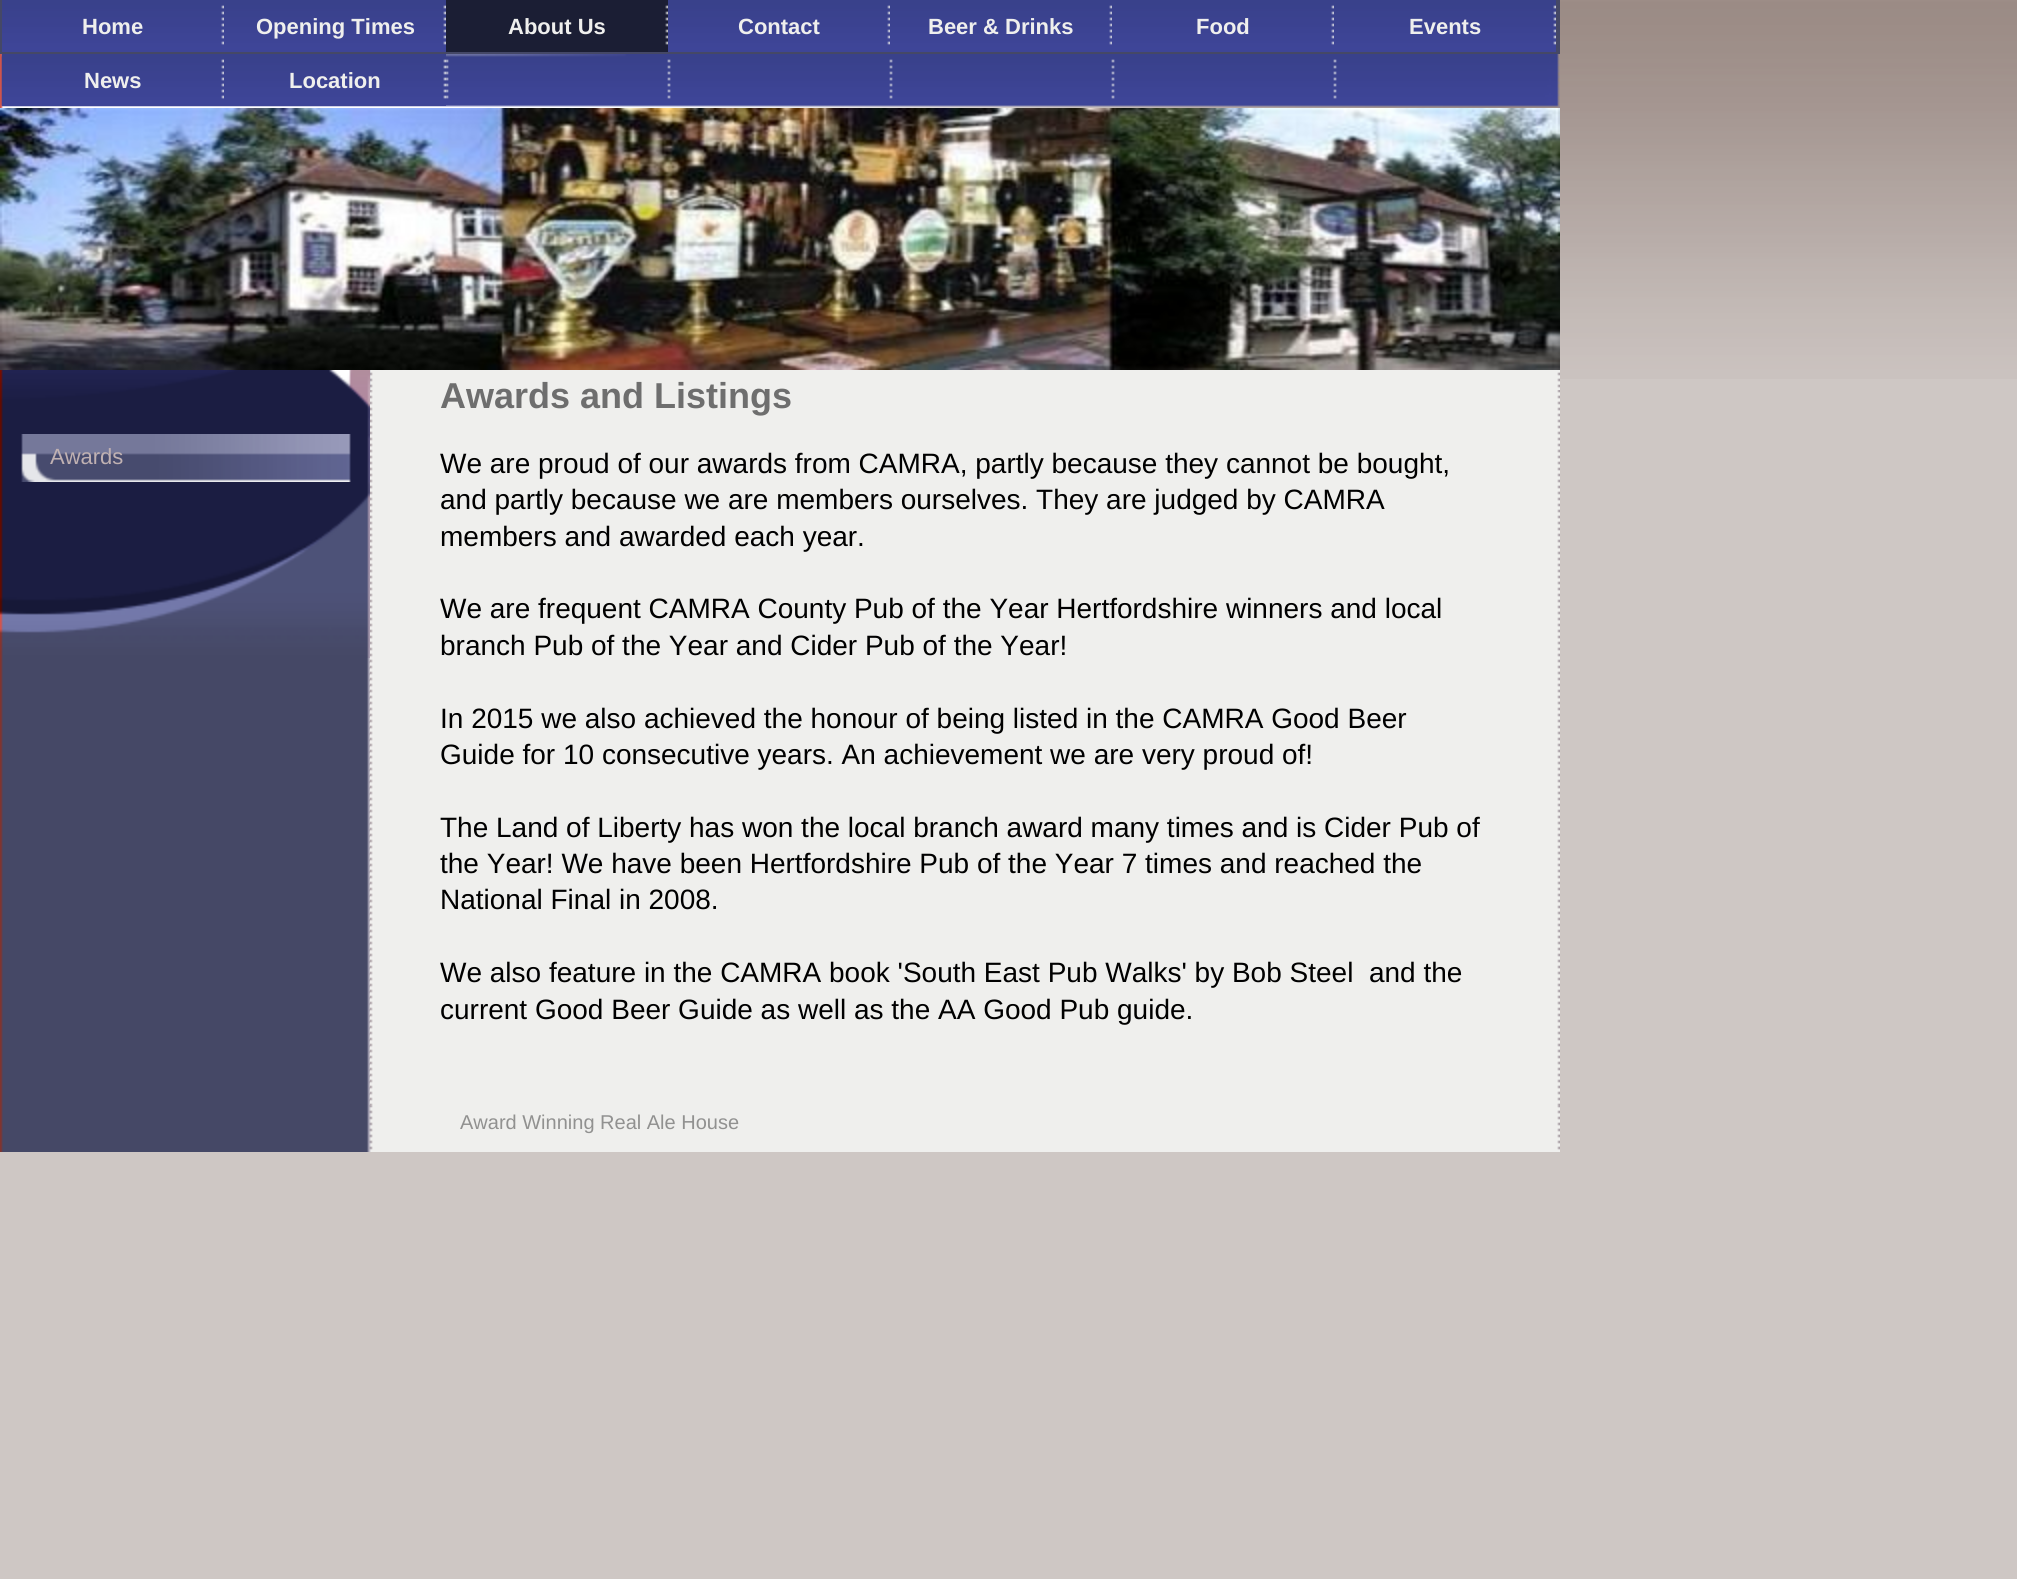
#include <cairo.h>
#include <math.h>
#include <stddef.h>


static void picture(cairo_t *cr, const char *path, double x, double y, double w, double h) {
    cairo_surface_t *image = cairo_image_surface_create_from_png(path);
    cairo_save(cr);
    cairo_set_source_surface(cr, image, x, y);
    cairo_rectangle(cr, x, y, w, h);
    cairo_fill(cr);
    cairo_restore(cr);
    cairo_surface_destroy(image);
}

int main(void) {
    cairo_surface_t *surface = cairo_image_surface_create(CAIRO_FORMAT_RGB24, 2017, 1579);
    cairo_t *cr = cairo_create(surface);
    cairo_font_options_t *options = cairo_font_options_create();
    cairo_font_options_set_hint_metrics(options, CAIRO_HINT_METRICS_OFF);
    cairo_font_options_set_hint_style(options, CAIRO_HINT_STYLE_NONE);
    cairo_set_font_options(cr, options);
    cairo_set_miter_limit(cr, 4);
    cairo_set_source_rgb(cr, 0.808, 0.78, 0.769);
    cairo_paint(cr);
    picture(cr, "img1.png", 1560, 0, 457, 379);
    picture(cr, "img2.png", 0, 370, 1560, 782);
    cairo_set_source_rgb(cr, 0.271, 0.282, 0.4);
    cairo_rectangle(cr, 0, 0, 1560, 54);
    cairo_fill(cr);
    picture(cr, "img3.png", 0, 54, 1560, 54);
    picture(cr, "img4.png", 2, 0, 222, 52);
    cairo_select_font_face(cr, "Liberation Sans", CAIRO_FONT_SLANT_NORMAL, CAIRO_FONT_WEIGHT_BOLD);
    cairo_set_font_size(cr, 22);
    cairo_set_source_rgb(cr, 0.937, 0.937, 0.929);
    cairo_move_to(cr, 82, 34);
    cairo_show_text(cr, "Home");
    picture(cr, "img4.png", 224, 0, 222, 52);
    cairo_move_to(cr, 256, 34);
    cairo_show_text(cr, "Opening Times");
    picture(cr, "img5.png", 446, 0, 222, 52);
    cairo_move_to(cr, 508, 34);
    cairo_show_text(cr, "About Us");
    picture(cr, "img4.png", 668, 0, 222, 52);
    cairo_move_to(cr, 738, 34);
    cairo_show_text(cr, "Contact");
    picture(cr, "img4.png", 890, 0, 222, 52);
    cairo_move_to(cr, 928, 34);
    cairo_show_text(cr, "Beer & Drinks");
    picture(cr, "img4.png", 1112, 0, 222, 52);
    cairo_move_to(cr, 1196, 34);
    cairo_show_text(cr, "Food");
    picture(cr, "img4.png", 1334, 0, 222, 52);
    cairo_move_to(cr, 1409, 34);
    cairo_show_text(cr, "Events");
    picture(cr, "img4.png", 2, 54, 222, 52);
    cairo_move_to(cr, 84, 88);
    cairo_show_text(cr, "News");
    picture(cr, "img4.png", 224, 54, 222, 52);
    cairo_move_to(cr, 289, 88);
    cairo_show_text(cr, "Location");
    picture(cr, "img6.png", 0, 108, 1560, 262);
    picture(cr, "img7.png", 0, 370, 370, 64);
    picture(cr, "img8.png", 0, 434, 370, 48);
    cairo_select_font_face(cr, "Liberation Sans", CAIRO_FONT_SLANT_NORMAL, CAIRO_FONT_WEIGHT_NORMAL);
    cairo_set_source_rgb(cr, 0.753, 0.694, 0.698);
    cairo_move_to(cr, 50, 464);
    cairo_show_text(cr, "Awards");
    picture(cr, "img9.png", 0, 482, 370, 176);
    picture(cr, "img10.png", 370, 390, 1190, 716);
    cairo_select_font_face(cr, "Liberation Sans", CAIRO_FONT_SLANT_NORMAL, CAIRO_FONT_WEIGHT_BOLD);
    cairo_set_font_size(cr, 36);
    cairo_set_source_rgb(cr, 0.431, 0.431, 0.431);
    cairo_move_to(cr, 440, 408);
    cairo_show_text(cr, "Awards and Listings");
    cairo_select_font_face(cr, "Liberation Sans", CAIRO_FONT_SLANT_NORMAL, CAIRO_FONT_WEIGHT_NORMAL);
    cairo_set_font_size(cr, 28);
    cairo_set_source_rgb(cr, 0, 0, 0);
    cairo_move_to(cr, 440, 473);
    cairo_show_text(cr, "We are proud of our awards from CAMRA, partly because they cannot be bought,");
    cairo_move_to(cr, 440, 509);
    cairo_show_text(cr, "and partly because we are members ourselves. They are judged by CAMRA");
    cairo_move_to(cr, 440, 546);
    cairo_show_text(cr, "members and awarded each year.");
    cairo_move_to(cr, 440, 618);
    cairo_show_text(cr, "We are frequent CAMRA County Pub of the Year Hertfordshire winners and local");
    cairo_move_to(cr, 440, 655);
    cairo_show_text(cr, "branch Pub of the Year and Cider Pub of the Year!");
    cairo_move_to(cr, 440, 728);
    cairo_show_text(cr, "In 2015 we also achieved the honour of being listed in the CAMRA Good Beer");
    cairo_move_to(cr, 440, 764);
    cairo_show_text(cr, "Guide for 10 consecutive years. An achievement we are very proud of!");
    cairo_move_to(cr, 440, 837);
    cairo_show_text(cr, "The Land of Liberty has won the local branch award many times and is Cider Pub of");
    cairo_move_to(cr, 440, 873);
    cairo_show_text(cr, "the Year! We have been Hertfordshire Pub of the Year 7 times and reached the");
    cairo_move_to(cr, 440, 909);
    cairo_show_text(cr, "National Final in 2008.");
    cairo_move_to(cr, 440, 982);
    cairo_show_text(cr, "We also feature in the CAMRA book 'South East Pub Walks' by Bob Steel  and the");
    cairo_move_to(cr, 440, 1019);
    cairo_show_text(cr, "current Good Beer Guide as well as the AA Good Pub guide.");
    cairo_set_font_size(cr, 20);
    cairo_set_source_rgb(cr, 0.569, 0.569, 0.565);
    cairo_move_to(cr, 460, 1129);
    cairo_show_text(cr, "Award Winning Real Ale House");
    cairo_surface_write_to_png(surface, "page.png");
    cairo_font_options_destroy(options);
    cairo_destroy(cr);
    cairo_surface_destroy(surface);
    return 0;
}
